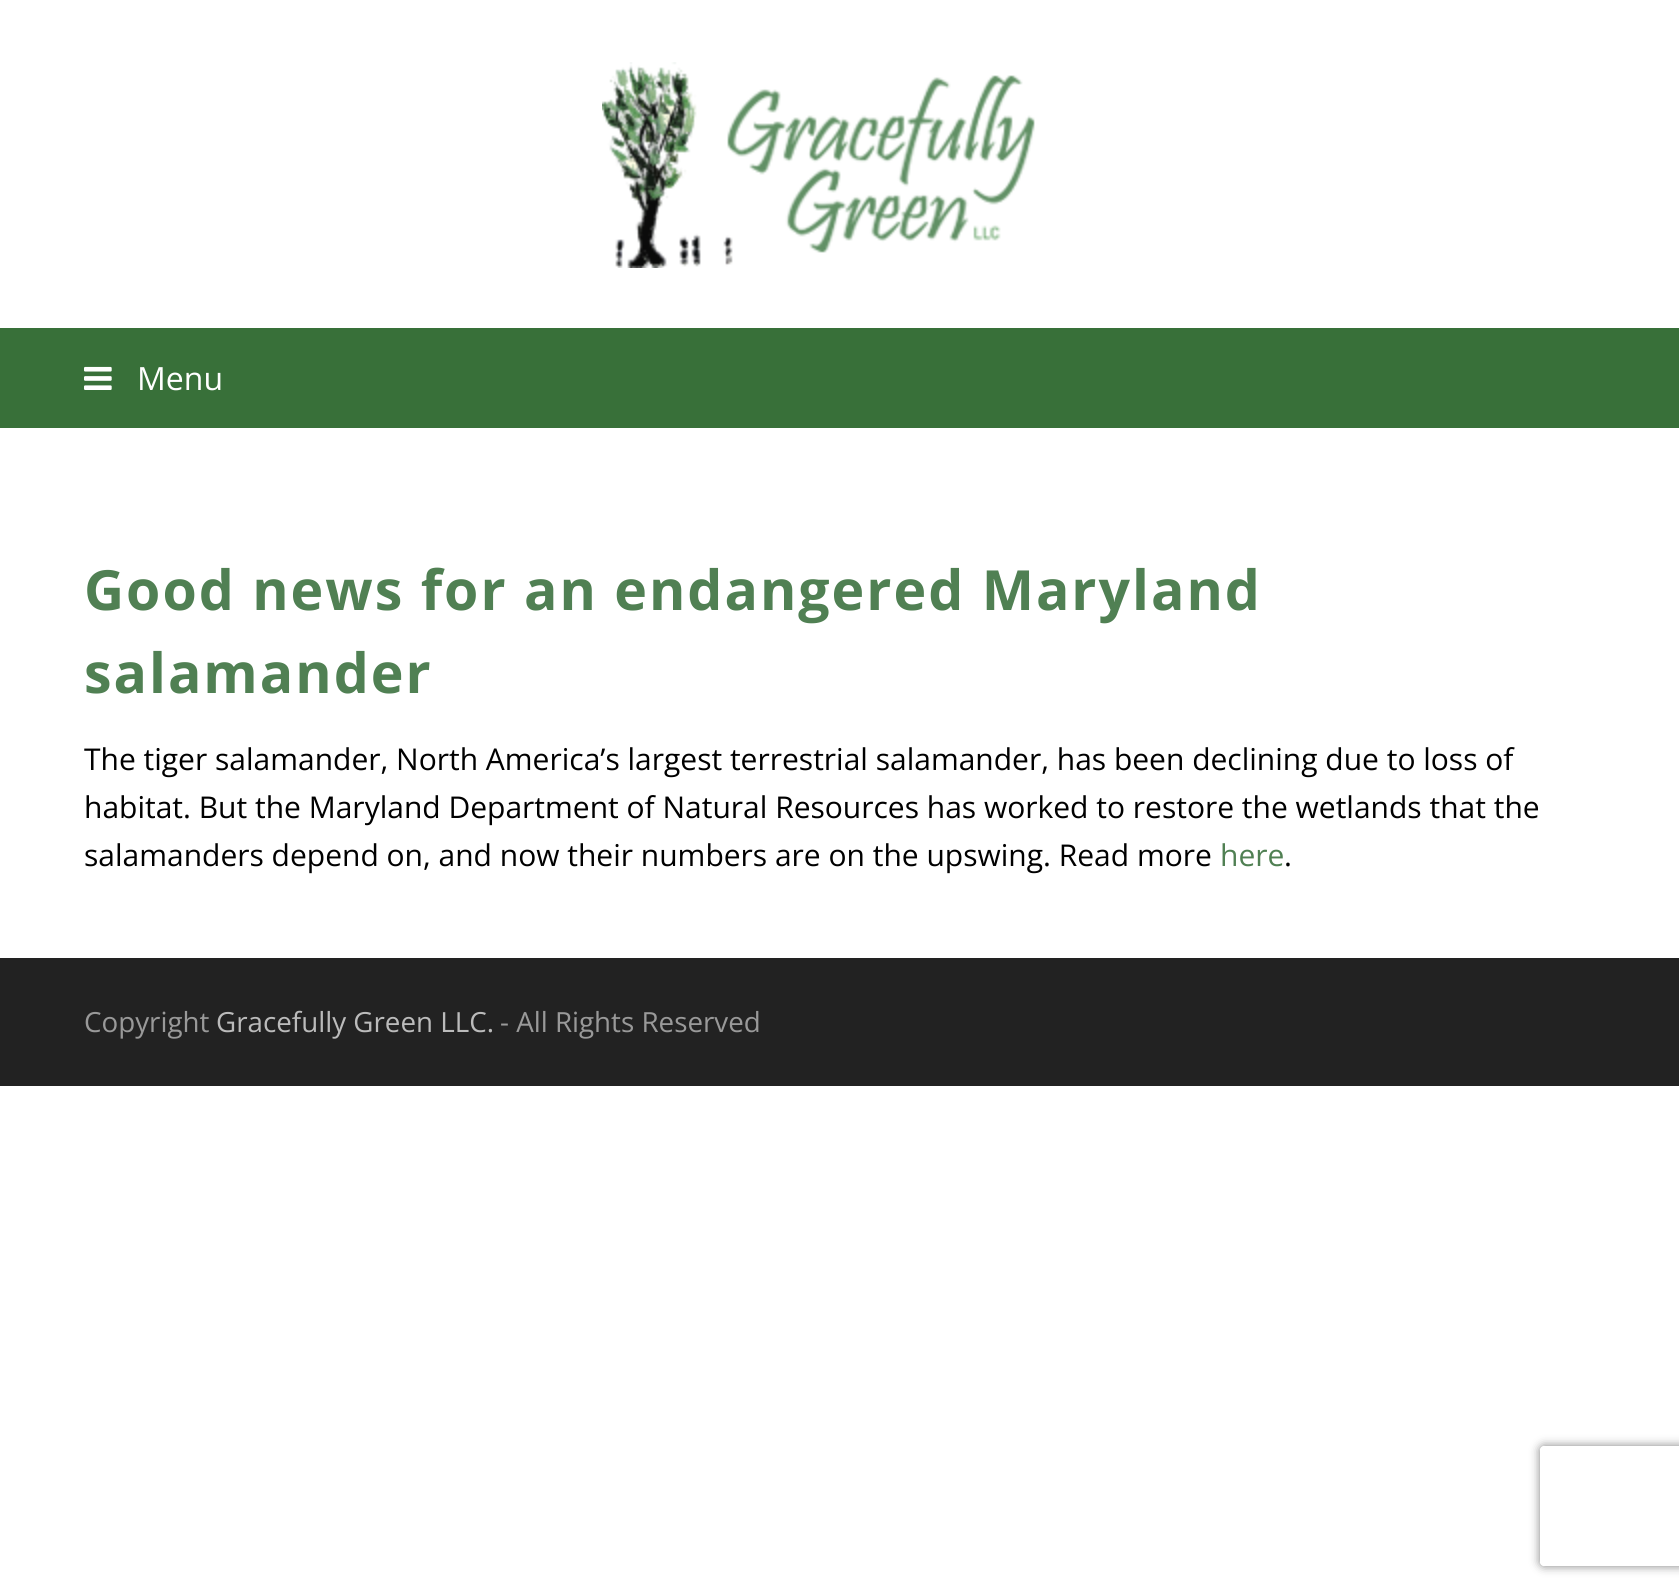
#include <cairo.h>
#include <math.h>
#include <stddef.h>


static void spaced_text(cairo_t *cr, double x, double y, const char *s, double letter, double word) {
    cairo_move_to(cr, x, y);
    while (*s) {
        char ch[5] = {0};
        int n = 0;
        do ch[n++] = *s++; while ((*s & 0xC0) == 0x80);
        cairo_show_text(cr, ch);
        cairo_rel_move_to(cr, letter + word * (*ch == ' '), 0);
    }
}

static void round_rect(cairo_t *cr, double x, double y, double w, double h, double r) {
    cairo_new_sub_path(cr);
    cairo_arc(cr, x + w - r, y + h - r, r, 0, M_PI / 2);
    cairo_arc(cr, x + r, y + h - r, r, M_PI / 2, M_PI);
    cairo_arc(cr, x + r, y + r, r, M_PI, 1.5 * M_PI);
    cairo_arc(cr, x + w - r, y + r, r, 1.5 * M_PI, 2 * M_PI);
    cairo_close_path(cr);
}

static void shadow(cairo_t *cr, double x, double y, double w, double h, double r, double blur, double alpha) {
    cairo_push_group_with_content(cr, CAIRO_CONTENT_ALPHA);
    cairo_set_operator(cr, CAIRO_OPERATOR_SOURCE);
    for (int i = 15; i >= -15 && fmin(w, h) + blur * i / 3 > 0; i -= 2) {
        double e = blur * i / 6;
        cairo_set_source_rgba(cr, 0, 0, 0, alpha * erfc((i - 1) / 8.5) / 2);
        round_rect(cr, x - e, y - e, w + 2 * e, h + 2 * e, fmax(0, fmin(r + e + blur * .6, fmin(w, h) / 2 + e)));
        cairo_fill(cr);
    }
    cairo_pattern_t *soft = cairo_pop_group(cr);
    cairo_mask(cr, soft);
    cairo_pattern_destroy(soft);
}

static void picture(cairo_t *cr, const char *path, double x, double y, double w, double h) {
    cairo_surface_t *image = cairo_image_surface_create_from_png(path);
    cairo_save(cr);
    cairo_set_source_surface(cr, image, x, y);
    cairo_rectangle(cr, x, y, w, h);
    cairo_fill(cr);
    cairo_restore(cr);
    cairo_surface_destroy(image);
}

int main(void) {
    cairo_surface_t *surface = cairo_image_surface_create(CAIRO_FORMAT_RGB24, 1679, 1593);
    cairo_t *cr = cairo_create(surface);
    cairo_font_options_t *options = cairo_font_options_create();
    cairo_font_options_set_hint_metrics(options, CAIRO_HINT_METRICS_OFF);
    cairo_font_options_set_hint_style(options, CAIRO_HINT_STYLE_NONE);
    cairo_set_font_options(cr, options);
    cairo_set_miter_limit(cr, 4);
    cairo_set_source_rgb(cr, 1, 1, 1);
    cairo_paint(cr);
    picture(cr, "img1.png", 602, 62, 433, 206);
    cairo_set_source_rgb(cr, 0.22, 0.439, 0.224);
    cairo_rectangle(cr, 0, 328, 1679, 100);
    cairo_fill(cr);
    picture(cr, "img2.png", 84, 366, 28, 24);
    cairo_select_font_face(cr, "Open Sans", CAIRO_FONT_SLANT_NORMAL, CAIRO_FONT_WEIGHT_NORMAL);
    cairo_set_font_size(cr, 32);
    cairo_set_source_rgb(cr, 1, 1, 1);
    cairo_move_to(cr, 137, 390);
    cairo_show_text(cr, "Menu");
    cairo_select_font_face(cr, "Open Sans", CAIRO_FONT_SLANT_NORMAL, CAIRO_FONT_WEIGHT_BOLD);
    cairo_set_font_size(cr, 55.4);
    cairo_set_source_rgb(cr, 0.314, 0.502, 0.325);
    spaced_text(cr, 84, 610, "Good news for an endangered Maryland", 2, 0);
    spaced_text(cr, 84, 693, "salamander", 2, 0);
    cairo_select_font_face(cr, "Open Sans", CAIRO_FONT_SLANT_NORMAL, CAIRO_FONT_WEIGHT_NORMAL);
    cairo_set_font_size(cr, 30);
    cairo_set_source_rgb(cr, 0, 0, 0);
    cairo_move_to(cr, 84, 770);
    cairo_show_text(cr, "The tiger salamander, North America’s largest terrestrial salamander, has been declining due to loss of");
    cairo_move_to(cr, 84, 818);
    cairo_show_text(cr, "habitat. But the Maryland Department of Natural Resources has worked to restore the wetlands that the");
    cairo_move_to(cr, 84, 866);
    cairo_show_text(cr, "salamanders depend on, and now their numbers are on the upswing. Read more");
    cairo_set_source_rgb(cr, 0.314, 0.502, 0.325);
    cairo_move_to(cr, 1220, 866);
    cairo_show_text(cr, "here");
    cairo_set_source_rgb(cr, 0, 0, 0);
    cairo_move_to(cr, 1284, 866);
    cairo_show_text(cr, ".");
    cairo_set_source_rgb(cr, 0.133, 0.133, 0.133);
    cairo_rectangle(cr, 0, 958, 1679, 128);
    cairo_fill(cr);
    cairo_set_font_size(cr, 27.75);
    cairo_set_source_rgb(cr, 0.6, 0.6, 0.6);
    cairo_move_to(cr, 84, 1032);
    cairo_show_text(cr, "Copyright");
    cairo_set_source_rgb(cr, 0.733, 0.733, 0.733);
    cairo_move_to(cr, 216, 1032);
    cairo_show_text(cr, "Gracefully Green LLC.");
    cairo_set_source_rgb(cr, 0.6, 0.6, 0.6);
    cairo_move_to(cr, 500, 1032);
    cairo_show_text(cr, "- All Rights Reserved");
    cairo_save(cr);
    cairo_set_fill_rule(cr, CAIRO_FILL_RULE_EVEN_ODD);
    cairo_new_path(cr);
    cairo_move_to(cr, 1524, 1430);
    cairo_line_to(cr, 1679, 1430);
    cairo_line_to(cr, 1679, 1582);
    cairo_line_to(cr, 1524, 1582);
    cairo_close_path(cr);
    cairo_move_to(cr, 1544, 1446);
    cairo_line_to(cr, 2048, 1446);
    cairo_curve_to(cr, 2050, 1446, 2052, 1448, 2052, 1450);
    cairo_line_to(cr, 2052, 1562);
    cairo_curve_to(cr, 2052, 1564, 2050, 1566, 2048, 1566);
    cairo_line_to(cr, 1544, 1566);
    cairo_curve_to(cr, 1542, 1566, 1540, 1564, 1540, 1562);
    cairo_line_to(cr, 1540, 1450);
    cairo_curve_to(cr, 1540, 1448, 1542, 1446, 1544, 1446);
    cairo_close_path(cr);
    cairo_clip(cr);
    cairo_set_source_rgb(cr, 0.502, 0.502, 0.502);
    shadow(cr, 1540, 1446, 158, 120, 4, 5, 1);
    cairo_restore(cr);
    cairo_surface_write_to_png(surface, "page.png");
    cairo_font_options_destroy(options);
    cairo_destroy(cr);
    cairo_surface_destroy(surface);
    return 0;
}
